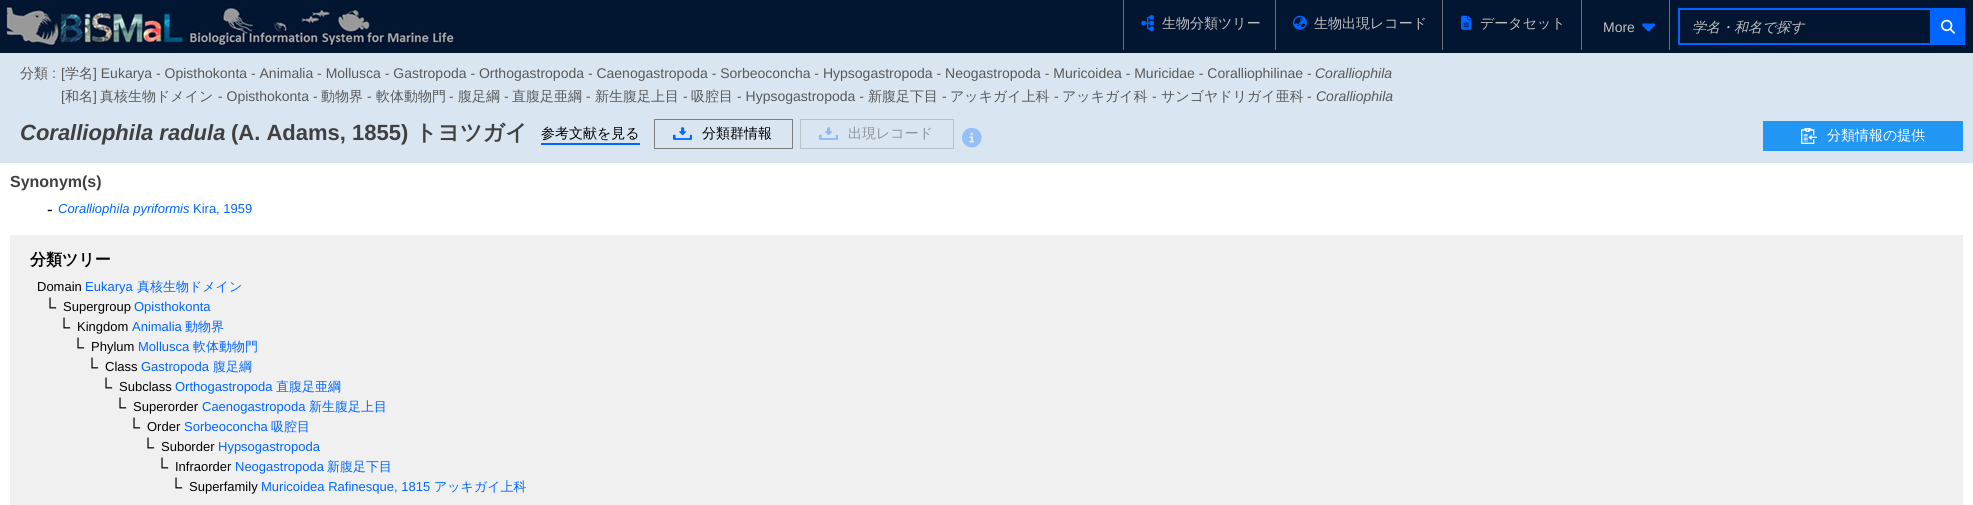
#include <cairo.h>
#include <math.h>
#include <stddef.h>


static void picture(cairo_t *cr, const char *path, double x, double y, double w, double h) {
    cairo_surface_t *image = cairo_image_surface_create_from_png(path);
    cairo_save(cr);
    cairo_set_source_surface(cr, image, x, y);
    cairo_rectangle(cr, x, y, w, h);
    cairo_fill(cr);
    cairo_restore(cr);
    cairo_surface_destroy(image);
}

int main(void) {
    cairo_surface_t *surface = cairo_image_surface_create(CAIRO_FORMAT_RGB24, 1973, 505);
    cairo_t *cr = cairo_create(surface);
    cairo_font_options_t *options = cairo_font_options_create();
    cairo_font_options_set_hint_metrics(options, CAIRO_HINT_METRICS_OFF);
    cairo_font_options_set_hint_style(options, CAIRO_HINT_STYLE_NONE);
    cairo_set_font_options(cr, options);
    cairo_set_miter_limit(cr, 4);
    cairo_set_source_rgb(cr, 1, 1, 1);
    cairo_paint(cr);
    cairo_set_source_rgb(cr, 0.008, 0.086, 0.192);
    cairo_rectangle(cr, 0, 0, 1973, 53);
    cairo_fill(cr);
    picture(cr, "img1.png", 5, 5, 450, 41);
    cairo_set_source_rgb(cr, 0.435, 0.435, 0.435);
    cairo_rectangle(cr, 1275, 0, 1, 50);
    cairo_fill(cr);
    cairo_rectangle(cr, 1123, 0, 1, 50);
    cairo_fill(cr);
    picture(cr, "img2.png", 1141, 15, 13, 16);
    cairo_select_font_face(cr, "WenQuanYi Zen Hei Medium", CAIRO_FONT_SLANT_NORMAL, CAIRO_FONT_WEIGHT_NORMAL);
    cairo_set_font_size(cr, 14);
    cairo_set_source_rgb(cr, 0.749, 0.749, 0.749);
    cairo_move_to(cr, 1162, 28);
    cairo_show_text(cr, "生物分類ツリー");
    cairo_set_source_rgb(cr, 0.435, 0.435, 0.435);
    cairo_rectangle(cr, 1442, 0, 1, 50);
    cairo_fill(cr);
    picture(cr, "img3.png", 1293, 15, 14, 15);
    cairo_set_source_rgb(cr, 0.749, 0.749, 0.749);
    cairo_move_to(cr, 1314, 28);
    cairo_show_text(cr, "生物出現レコード");
    cairo_set_source_rgb(cr, 0.435, 0.435, 0.435);
    cairo_rectangle(cr, 1581, 0, 1, 50);
    cairo_fill(cr);
    picture(cr, "img4.png", 1461, 15, 11, 15);
    cairo_set_source_rgb(cr, 0.749, 0.749, 0.749);
    cairo_move_to(cr, 1480, 28);
    cairo_show_text(cr, "データセット");
    cairo_set_source_rgb(cr, 0.435, 0.435, 0.435);
    cairo_rectangle(cr, 1669, 0, 1, 50);
    cairo_fill(cr);
    cairo_select_font_face(cr, "Liberation Sans", CAIRO_FONT_SLANT_NORMAL, CAIRO_FONT_WEIGHT_NORMAL);
    cairo_set_source_rgb(cr, 0.749, 0.749, 0.749);
    cairo_move_to(cr, 1603, 32);
    cairo_show_text(cr, "More");
    picture(cr, "img5.png", 1642, 23, 14, 9);
    cairo_rectangle(cr, 1679, 9, 285, 35);
    cairo_set_source_rgb(cr, 0, 0.4, 1);
    cairo_stroke(cr);
    cairo_select_font_face(cr, "WenQuanYi Zen Hei Medium", CAIRO_FONT_SLANT_ITALIC, CAIRO_FONT_WEIGHT_NORMAL);
    cairo_set_source_rgb(cr, 0.749, 0.749, 0.749);
    cairo_move_to(cr, 1692, 32);
    cairo_show_text(cr, "学名・和名で探す");
    cairo_set_source_rgb(cr, 0, 0.4, 1);
    cairo_rectangle(cr, 1930, 10, 33, 33);
    cairo_fill(cr);
    picture(cr, "img6.png", 1941, 19, 14, 15);
    cairo_set_source_rgb(cr, 0.851, 0.898, 0.945);
    cairo_rectangle(cr, 0, 53, 1973, 110);
    cairo_fill(cr);
    cairo_select_font_face(cr, "WenQuanYi Zen Hei Medium", CAIRO_FONT_SLANT_NORMAL, CAIRO_FONT_WEIGHT_NORMAL);
    cairo_set_source_rgb(cr, 0.349, 0.349, 0.349);
    cairo_move_to(cr, 20, 78);
    cairo_show_text(cr, "分類");
    cairo_select_font_face(cr, "Liberation Sans", CAIRO_FONT_SLANT_NORMAL, CAIRO_FONT_WEIGHT_NORMAL);
    cairo_move_to(cr, 52, 78);
    cairo_show_text(cr, ":");
    cairo_move_to(cr, 61, 78);
    cairo_show_text(cr, "[");
    cairo_select_font_face(cr, "WenQuanYi Zen Hei Medium", CAIRO_FONT_SLANT_NORMAL, CAIRO_FONT_WEIGHT_NORMAL);
    cairo_move_to(cr, 65, 78);
    cairo_show_text(cr, "学名");
    cairo_select_font_face(cr, "Liberation Sans", CAIRO_FONT_SLANT_NORMAL, CAIRO_FONT_WEIGHT_NORMAL);
    cairo_move_to(cr, 93, 78);
    cairo_show_text(cr, "] Eukarya - Opisthokonta - Animalia - Mollusca - Gastropoda - Orthogastropoda - Caenogastropoda - Sorbeoconcha - Hypsogastropoda - Neogastropoda - Muricoidea - Muricidae - Coralliophilinae -");
    cairo_select_font_face(cr, "Liberation Sans", CAIRO_FONT_SLANT_ITALIC, CAIRO_FONT_WEIGHT_NORMAL);
    cairo_move_to(cr, 1315, 78);
    cairo_show_text(cr, "Coralliophila");
    cairo_select_font_face(cr, "Liberation Sans", CAIRO_FONT_SLANT_NORMAL, CAIRO_FONT_WEIGHT_NORMAL);
    cairo_move_to(cr, 61, 101);
    cairo_show_text(cr, "[");
    cairo_select_font_face(cr, "WenQuanYi Zen Hei Medium", CAIRO_FONT_SLANT_NORMAL, CAIRO_FONT_WEIGHT_NORMAL);
    cairo_move_to(cr, 65, 101);
    cairo_show_text(cr, "和名");
    cairo_select_font_face(cr, "Liberation Sans", CAIRO_FONT_SLANT_NORMAL, CAIRO_FONT_WEIGHT_NORMAL);
    cairo_move_to(cr, 93, 101);
    cairo_show_text(cr, "]");
    cairo_select_font_face(cr, "WenQuanYi Zen Hei Medium", CAIRO_FONT_SLANT_NORMAL, CAIRO_FONT_WEIGHT_NORMAL);
    cairo_move_to(cr, 100, 101);
    cairo_show_text(cr, "真核生物ドメイン");
    cairo_select_font_face(cr, "Liberation Sans", CAIRO_FONT_SLANT_NORMAL, CAIRO_FONT_WEIGHT_NORMAL);
    cairo_move_to(cr, 218, 101);
    cairo_show_text(cr, "- Opisthokonta -");
    cairo_select_font_face(cr, "WenQuanYi Zen Hei Medium", CAIRO_FONT_SLANT_NORMAL, CAIRO_FONT_WEIGHT_NORMAL);
    cairo_move_to(cr, 321, 101);
    cairo_show_text(cr, "動物界");
    cairo_select_font_face(cr, "Liberation Sans", CAIRO_FONT_SLANT_NORMAL, CAIRO_FONT_WEIGHT_NORMAL);
    cairo_move_to(cr, 367, 101);
    cairo_show_text(cr, "-");
    cairo_select_font_face(cr, "WenQuanYi Zen Hei Medium", CAIRO_FONT_SLANT_NORMAL, CAIRO_FONT_WEIGHT_NORMAL);
    cairo_move_to(cr, 376, 101);
    cairo_show_text(cr, "軟体動物門");
    cairo_select_font_face(cr, "Liberation Sans", CAIRO_FONT_SLANT_NORMAL, CAIRO_FONT_WEIGHT_NORMAL);
    cairo_move_to(cr, 449, 101);
    cairo_show_text(cr, "-");
    cairo_select_font_face(cr, "WenQuanYi Zen Hei Medium", CAIRO_FONT_SLANT_NORMAL, CAIRO_FONT_WEIGHT_NORMAL);
    cairo_move_to(cr, 458, 101);
    cairo_show_text(cr, "腹足綱");
    cairo_select_font_face(cr, "Liberation Sans", CAIRO_FONT_SLANT_NORMAL, CAIRO_FONT_WEIGHT_NORMAL);
    cairo_move_to(cr, 504, 101);
    cairo_show_text(cr, "-");
    cairo_select_font_face(cr, "WenQuanYi Zen Hei Medium", CAIRO_FONT_SLANT_NORMAL, CAIRO_FONT_WEIGHT_NORMAL);
    cairo_move_to(cr, 512, 101);
    cairo_show_text(cr, "直腹足亜綱");
    cairo_select_font_face(cr, "Liberation Sans", CAIRO_FONT_SLANT_NORMAL, CAIRO_FONT_WEIGHT_NORMAL);
    cairo_move_to(cr, 586, 101);
    cairo_show_text(cr, "-");
    cairo_select_font_face(cr, "WenQuanYi Zen Hei Medium", CAIRO_FONT_SLANT_NORMAL, CAIRO_FONT_WEIGHT_NORMAL);
    cairo_move_to(cr, 595, 101);
    cairo_show_text(cr, "新生腹足上目");
    cairo_select_font_face(cr, "Liberation Sans", CAIRO_FONT_SLANT_NORMAL, CAIRO_FONT_WEIGHT_NORMAL);
    cairo_move_to(cr, 683, 101);
    cairo_show_text(cr, "-");
    cairo_select_font_face(cr, "WenQuanYi Zen Hei Medium", CAIRO_FONT_SLANT_NORMAL, CAIRO_FONT_WEIGHT_NORMAL);
    cairo_move_to(cr, 691, 101);
    cairo_show_text(cr, "吸腔目");
    cairo_select_font_face(cr, "Liberation Sans", CAIRO_FONT_SLANT_NORMAL, CAIRO_FONT_WEIGHT_NORMAL);
    cairo_move_to(cr, 737, 101);
    cairo_show_text(cr, "- Hypsogastropoda -");
    cairo_select_font_face(cr, "WenQuanYi Zen Hei Medium", CAIRO_FONT_SLANT_NORMAL, CAIRO_FONT_WEIGHT_NORMAL);
    cairo_move_to(cr, 868, 101);
    cairo_show_text(cr, "新腹足下目");
    cairo_select_font_face(cr, "Liberation Sans", CAIRO_FONT_SLANT_NORMAL, CAIRO_FONT_WEIGHT_NORMAL);
    cairo_move_to(cr, 942, 101);
    cairo_show_text(cr, "-");
    cairo_select_font_face(cr, "WenQuanYi Zen Hei Medium", CAIRO_FONT_SLANT_NORMAL, CAIRO_FONT_WEIGHT_NORMAL);
    cairo_move_to(cr, 950, 101);
    cairo_show_text(cr, "アッキガイ上科");
    cairo_select_font_face(cr, "Liberation Sans", CAIRO_FONT_SLANT_NORMAL, CAIRO_FONT_WEIGHT_NORMAL);
    cairo_move_to(cr, 1054, 101);
    cairo_show_text(cr, "-");
    cairo_select_font_face(cr, "WenQuanYi Zen Hei Medium", CAIRO_FONT_SLANT_NORMAL, CAIRO_FONT_WEIGHT_NORMAL);
    cairo_move_to(cr, 1062, 101);
    cairo_show_text(cr, "アッキガイ科");
    cairo_select_font_face(cr, "Liberation Sans", CAIRO_FONT_SLANT_NORMAL, CAIRO_FONT_WEIGHT_NORMAL);
    cairo_move_to(cr, 1152, 101);
    cairo_show_text(cr, "-");
    cairo_select_font_face(cr, "WenQuanYi Zen Hei Medium", CAIRO_FONT_SLANT_NORMAL, CAIRO_FONT_WEIGHT_NORMAL);
    cairo_move_to(cr, 1161, 101);
    cairo_show_text(cr, "サンゴヤドリガイ亜科");
    cairo_select_font_face(cr, "Liberation Sans", CAIRO_FONT_SLANT_NORMAL, CAIRO_FONT_WEIGHT_NORMAL);
    cairo_move_to(cr, 1307, 101);
    cairo_show_text(cr, "-");
    cairo_select_font_face(cr, "Liberation Sans", CAIRO_FONT_SLANT_ITALIC, CAIRO_FONT_WEIGHT_NORMAL);
    cairo_move_to(cr, 1316, 101);
    cairo_show_text(cr, "Coralliophila");
    cairo_select_font_face(cr, "Liberation Sans", CAIRO_FONT_SLANT_ITALIC, CAIRO_FONT_WEIGHT_BOLD);
    cairo_set_font_size(cr, 22);
    cairo_set_source_rgb(cr, 0.251, 0.251, 0.251);
    cairo_move_to(cr, 20, 140);
    cairo_show_text(cr, "Coralliophila radula");
    cairo_select_font_face(cr, "Liberation Sans", CAIRO_FONT_SLANT_NORMAL, CAIRO_FONT_WEIGHT_BOLD);
    cairo_move_to(cr, 231, 140);
    cairo_show_text(cr, "(A. Adams, 1855)");
    cairo_select_font_face(cr, "WenQuanYi Zen Hei", CAIRO_FONT_SLANT_NORMAL, CAIRO_FONT_WEIGHT_BOLD);
    cairo_move_to(cr, 415, 140);
    cairo_show_text(cr, "トヨツガイ");
    cairo_set_source_rgb(cr, 0, 0.4, 1);
    cairo_rectangle(cr, 541, 143, 99, 2);
    cairo_fill(cr);
    cairo_select_font_face(cr, "WenQuanYi Zen Hei Medium", CAIRO_FONT_SLANT_NORMAL, CAIRO_FONT_WEIGHT_NORMAL);
    cairo_set_font_size(cr, 14);
    cairo_set_source_rgb(cr, 0, 0, 0);
    cairo_move_to(cr, 541, 138);
    cairo_show_text(cr, "参考文献を見る");
    cairo_rectangle(cr, 654.5, 119.5, 138, 29);
    cairo_set_source_rgb(cr, 0.498, 0.498, 0.498);
    cairo_set_line_width(cr, 1);
    cairo_stroke(cr);
    picture(cr, "img7.png", 673, 127, 19, 13);
    cairo_set_source_rgb(cr, 0, 0, 0);
    cairo_move_to(cr, 702, 138);
    cairo_show_text(cr, "分類群情報");
    cairo_rectangle(cr, 800.5, 119.5, 153, 29);
    cairo_set_source_rgb(cr, 0.725, 0.757, 0.788);
    cairo_stroke(cr);
    picture(cr, "img8.png", 819, 127, 19, 13);
    cairo_set_source_rgb(cr, 0.553, 0.584, 0.616);
    cairo_move_to(cr, 848, 138);
    cairo_show_text(cr, "出現レコード");
    cairo_set_source_rgb(cr, 0.902, 0.933, 0.965);
    cairo_new_path(cr);
    cairo_move_to(cr, 972, 147.5);
    cairo_curve_to(cr, 984.5, 147.5, 984.5, 128, 972, 128);
    cairo_curve_to(cr, 959, 128, 959, 147.5, 972, 147.5);
    cairo_close_path(cr);
    cairo_fill(cr);
    picture(cr, "img9.png", 962, 127, 20, 21);
    cairo_set_source_rgb(cr, 0.129, 0.588, 0.953);
    cairo_rectangle(cr, 1763, 121, 200, 30);
    cairo_fill(cr);
    picture(cr, "img10.png", 1801, 128, 16, 16);
    cairo_set_source_rgb(cr, 1, 1, 1);
    cairo_move_to(cr, 1827, 140);
    cairo_show_text(cr, "分類情報の提供");
    cairo_select_font_face(cr, "Liberation Sans", CAIRO_FONT_SLANT_NORMAL, CAIRO_FONT_WEIGHT_BOLD);
    cairo_set_font_size(cr, 16);
    cairo_set_source_rgb(cr, 0.251, 0.251, 0.251);
    cairo_move_to(cr, 10, 187);
    cairo_show_text(cr, "Synonym(s)");
    cairo_select_font_face(cr, "Liberation Sans", CAIRO_FONT_SLANT_NORMAL, CAIRO_FONT_WEIGHT_NORMAL);
    cairo_set_font_size(cr, 17);
    cairo_set_source_rgb(cr, 0, 0, 0);
    cairo_move_to(cr, 47, 215);
    cairo_show_text(cr, "-");
    cairo_select_font_face(cr, "Liberation Sans", CAIRO_FONT_SLANT_ITALIC, CAIRO_FONT_WEIGHT_NORMAL);
    cairo_set_font_size(cr, 13);
    cairo_set_source_rgb(cr, 0, 0.4, 1);
    cairo_move_to(cr, 58, 213);
    cairo_show_text(cr, "Coralliophila pyriformis");
    cairo_select_font_face(cr, "Liberation Sans", CAIRO_FONT_SLANT_NORMAL, CAIRO_FONT_WEIGHT_NORMAL);
    cairo_move_to(cr, 193, 213);
    cairo_show_text(cr, "Kira, 1959");
    cairo_set_source_rgb(cr, 0.941, 0.941, 0.941);
    cairo_rectangle(cr, 10, 235, 1953, 270);
    cairo_fill(cr);
    cairo_select_font_face(cr, "WenQuanYi Zen Hei", CAIRO_FONT_SLANT_NORMAL, CAIRO_FONT_WEIGHT_BOLD);
    cairo_set_font_size(cr, 16);
    cairo_set_source_rgb(cr, 0, 0, 0);
    cairo_move_to(cr, 30, 265);
    cairo_show_text(cr, "分類ツリー");
    cairo_select_font_face(cr, "Liberation Sans", CAIRO_FONT_SLANT_NORMAL, CAIRO_FONT_WEIGHT_NORMAL);
    cairo_set_font_size(cr, 13);
    cairo_move_to(cr, 37, 291);
    cairo_show_text(cr, "Domain");
    cairo_set_source_rgb(cr, 0, 0.4, 1);
    cairo_move_to(cr, 85, 291);
    cairo_show_text(cr, "Eukarya");
    cairo_select_font_face(cr, "WenQuanYi Zen Hei Medium", CAIRO_FONT_SLANT_NORMAL, CAIRO_FONT_WEIGHT_NORMAL);
    cairo_move_to(cr, 137, 291);
    cairo_show_text(cr, "真核生物ドメイン");
    cairo_select_font_face(cr, "Liberation Sans", CAIRO_FONT_SLANT_NORMAL, CAIRO_FONT_WEIGHT_NORMAL);
    cairo_set_font_size(cr, 17);
    cairo_set_source_rgb(cr, 0, 0, 0);
    cairo_move_to(cr, 44, 313);
    cairo_show_text(cr, "└");
    cairo_set_font_size(cr, 13);
    cairo_move_to(cr, 63, 311);
    cairo_show_text(cr, "Supergroup");
    cairo_set_source_rgb(cr, 0, 0.4, 1);
    cairo_move_to(cr, 134, 311);
    cairo_show_text(cr, "Opisthokonta");
    cairo_set_font_size(cr, 17);
    cairo_set_source_rgb(cr, 0, 0, 0);
    cairo_move_to(cr, 58, 333);
    cairo_show_text(cr, "└");
    cairo_set_font_size(cr, 13);
    cairo_move_to(cr, 77, 331);
    cairo_show_text(cr, "Kingdom");
    cairo_set_source_rgb(cr, 0, 0.4, 1);
    cairo_move_to(cr, 132, 331);
    cairo_show_text(cr, "Animalia");
    cairo_select_font_face(cr, "WenQuanYi Zen Hei Medium", CAIRO_FONT_SLANT_NORMAL, CAIRO_FONT_WEIGHT_NORMAL);
    cairo_move_to(cr, 185, 331);
    cairo_show_text(cr, "動物界");
    cairo_select_font_face(cr, "Liberation Sans", CAIRO_FONT_SLANT_NORMAL, CAIRO_FONT_WEIGHT_NORMAL);
    cairo_set_font_size(cr, 17);
    cairo_set_source_rgb(cr, 0, 0, 0);
    cairo_move_to(cr, 72, 353);
    cairo_show_text(cr, "└");
    cairo_set_font_size(cr, 13);
    cairo_move_to(cr, 91, 351);
    cairo_show_text(cr, "Phylum");
    cairo_set_source_rgb(cr, 0, 0.4, 1);
    cairo_move_to(cr, 138, 351);
    cairo_show_text(cr, "Mollusca");
    cairo_select_font_face(cr, "WenQuanYi Zen Hei Medium", CAIRO_FONT_SLANT_NORMAL, CAIRO_FONT_WEIGHT_NORMAL);
    cairo_move_to(cr, 193, 351);
    cairo_show_text(cr, "軟体動物門");
    cairo_select_font_face(cr, "Liberation Sans", CAIRO_FONT_SLANT_NORMAL, CAIRO_FONT_WEIGHT_NORMAL);
    cairo_set_font_size(cr, 17);
    cairo_set_source_rgb(cr, 0, 0, 0);
    cairo_move_to(cr, 86, 373);
    cairo_show_text(cr, "└");
    cairo_set_font_size(cr, 13);
    cairo_move_to(cr, 105, 371);
    cairo_show_text(cr, "Class");
    cairo_set_source_rgb(cr, 0, 0.4, 1);
    cairo_move_to(cr, 141, 371);
    cairo_show_text(cr, "Gastropoda");
    cairo_select_font_face(cr, "WenQuanYi Zen Hei Medium", CAIRO_FONT_SLANT_NORMAL, CAIRO_FONT_WEIGHT_NORMAL);
    cairo_move_to(cr, 213, 371);
    cairo_show_text(cr, "腹足綱");
    cairo_select_font_face(cr, "Liberation Sans", CAIRO_FONT_SLANT_NORMAL, CAIRO_FONT_WEIGHT_NORMAL);
    cairo_set_font_size(cr, 17);
    cairo_set_source_rgb(cr, 0, 0, 0);
    cairo_move_to(cr, 100, 393);
    cairo_show_text(cr, "└");
    cairo_set_font_size(cr, 13);
    cairo_move_to(cr, 119, 391);
    cairo_show_text(cr, "Subclass");
    cairo_set_source_rgb(cr, 0, 0.4, 1);
    cairo_move_to(cr, 175, 391);
    cairo_show_text(cr, "Orthogastropoda");
    cairo_select_font_face(cr, "WenQuanYi Zen Hei Medium", CAIRO_FONT_SLANT_NORMAL, CAIRO_FONT_WEIGHT_NORMAL);
    cairo_move_to(cr, 276, 391);
    cairo_show_text(cr, "直腹足亜綱");
    cairo_select_font_face(cr, "Liberation Sans", CAIRO_FONT_SLANT_NORMAL, CAIRO_FONT_WEIGHT_NORMAL);
    cairo_set_font_size(cr, 17);
    cairo_set_source_rgb(cr, 0, 0, 0);
    cairo_move_to(cr, 114, 413);
    cairo_show_text(cr, "└");
    cairo_set_font_size(cr, 13);
    cairo_move_to(cr, 133, 411);
    cairo_show_text(cr, "Superorder");
    cairo_set_source_rgb(cr, 0, 0.4, 1);
    cairo_move_to(cr, 202, 411);
    cairo_show_text(cr, "Caenogastropoda");
    cairo_select_font_face(cr, "WenQuanYi Zen Hei Medium", CAIRO_FONT_SLANT_NORMAL, CAIRO_FONT_WEIGHT_NORMAL);
    cairo_move_to(cr, 309, 411);
    cairo_show_text(cr, "新生腹足上目");
    cairo_select_font_face(cr, "Liberation Sans", CAIRO_FONT_SLANT_NORMAL, CAIRO_FONT_WEIGHT_NORMAL);
    cairo_set_font_size(cr, 17);
    cairo_set_source_rgb(cr, 0, 0, 0);
    cairo_move_to(cr, 128, 433);
    cairo_show_text(cr, "└");
    cairo_set_font_size(cr, 13);
    cairo_move_to(cr, 147, 431);
    cairo_show_text(cr, "Order");
    cairo_set_source_rgb(cr, 0, 0.4, 1);
    cairo_move_to(cr, 184, 431);
    cairo_show_text(cr, "Sorbeoconcha");
    cairo_select_font_face(cr, "WenQuanYi Zen Hei Medium", CAIRO_FONT_SLANT_NORMAL, CAIRO_FONT_WEIGHT_NORMAL);
    cairo_move_to(cr, 271, 431);
    cairo_show_text(cr, "吸腔目");
    cairo_select_font_face(cr, "Liberation Sans", CAIRO_FONT_SLANT_NORMAL, CAIRO_FONT_WEIGHT_NORMAL);
    cairo_set_font_size(cr, 17);
    cairo_set_source_rgb(cr, 0, 0, 0);
    cairo_move_to(cr, 142, 453);
    cairo_show_text(cr, "└");
    cairo_set_font_size(cr, 13);
    cairo_move_to(cr, 161, 451);
    cairo_show_text(cr, "Suborder");
    cairo_set_source_rgb(cr, 0, 0.4, 1);
    cairo_move_to(cr, 218, 451);
    cairo_show_text(cr, "Hypsogastropoda");
    cairo_set_font_size(cr, 17);
    cairo_set_source_rgb(cr, 0, 0, 0);
    cairo_move_to(cr, 156, 473);
    cairo_show_text(cr, "└");
    cairo_set_font_size(cr, 13);
    cairo_move_to(cr, 175, 471);
    cairo_show_text(cr, "Infraorder");
    cairo_set_source_rgb(cr, 0, 0.4, 1);
    cairo_move_to(cr, 235, 471);
    cairo_show_text(cr, "Neogastropoda");
    cairo_select_font_face(cr, "WenQuanYi Zen Hei Medium", CAIRO_FONT_SLANT_NORMAL, CAIRO_FONT_WEIGHT_NORMAL);
    cairo_move_to(cr, 327, 471);
    cairo_show_text(cr, "新腹足下目");
    cairo_select_font_face(cr, "Liberation Sans", CAIRO_FONT_SLANT_NORMAL, CAIRO_FONT_WEIGHT_NORMAL);
    cairo_set_font_size(cr, 17);
    cairo_set_source_rgb(cr, 0, 0, 0);
    cairo_move_to(cr, 170, 493);
    cairo_show_text(cr, "└");
    cairo_set_font_size(cr, 13);
    cairo_move_to(cr, 189, 491);
    cairo_show_text(cr, "Superfamily");
    cairo_set_source_rgb(cr, 0, 0.4, 1);
    cairo_move_to(cr, 261, 491);
    cairo_show_text(cr, "Muricoidea Rafinesque, 1815");
    cairo_select_font_face(cr, "WenQuanYi Zen Hei Medium", CAIRO_FONT_SLANT_NORMAL, CAIRO_FONT_WEIGHT_NORMAL);
    cairo_move_to(cr, 434, 491);
    cairo_show_text(cr, "アッキガイ上科");
    cairo_surface_write_to_png(surface, "page.png");
    cairo_font_options_destroy(options);
    cairo_destroy(cr);
    cairo_surface_destroy(surface);
    return 0;
}
